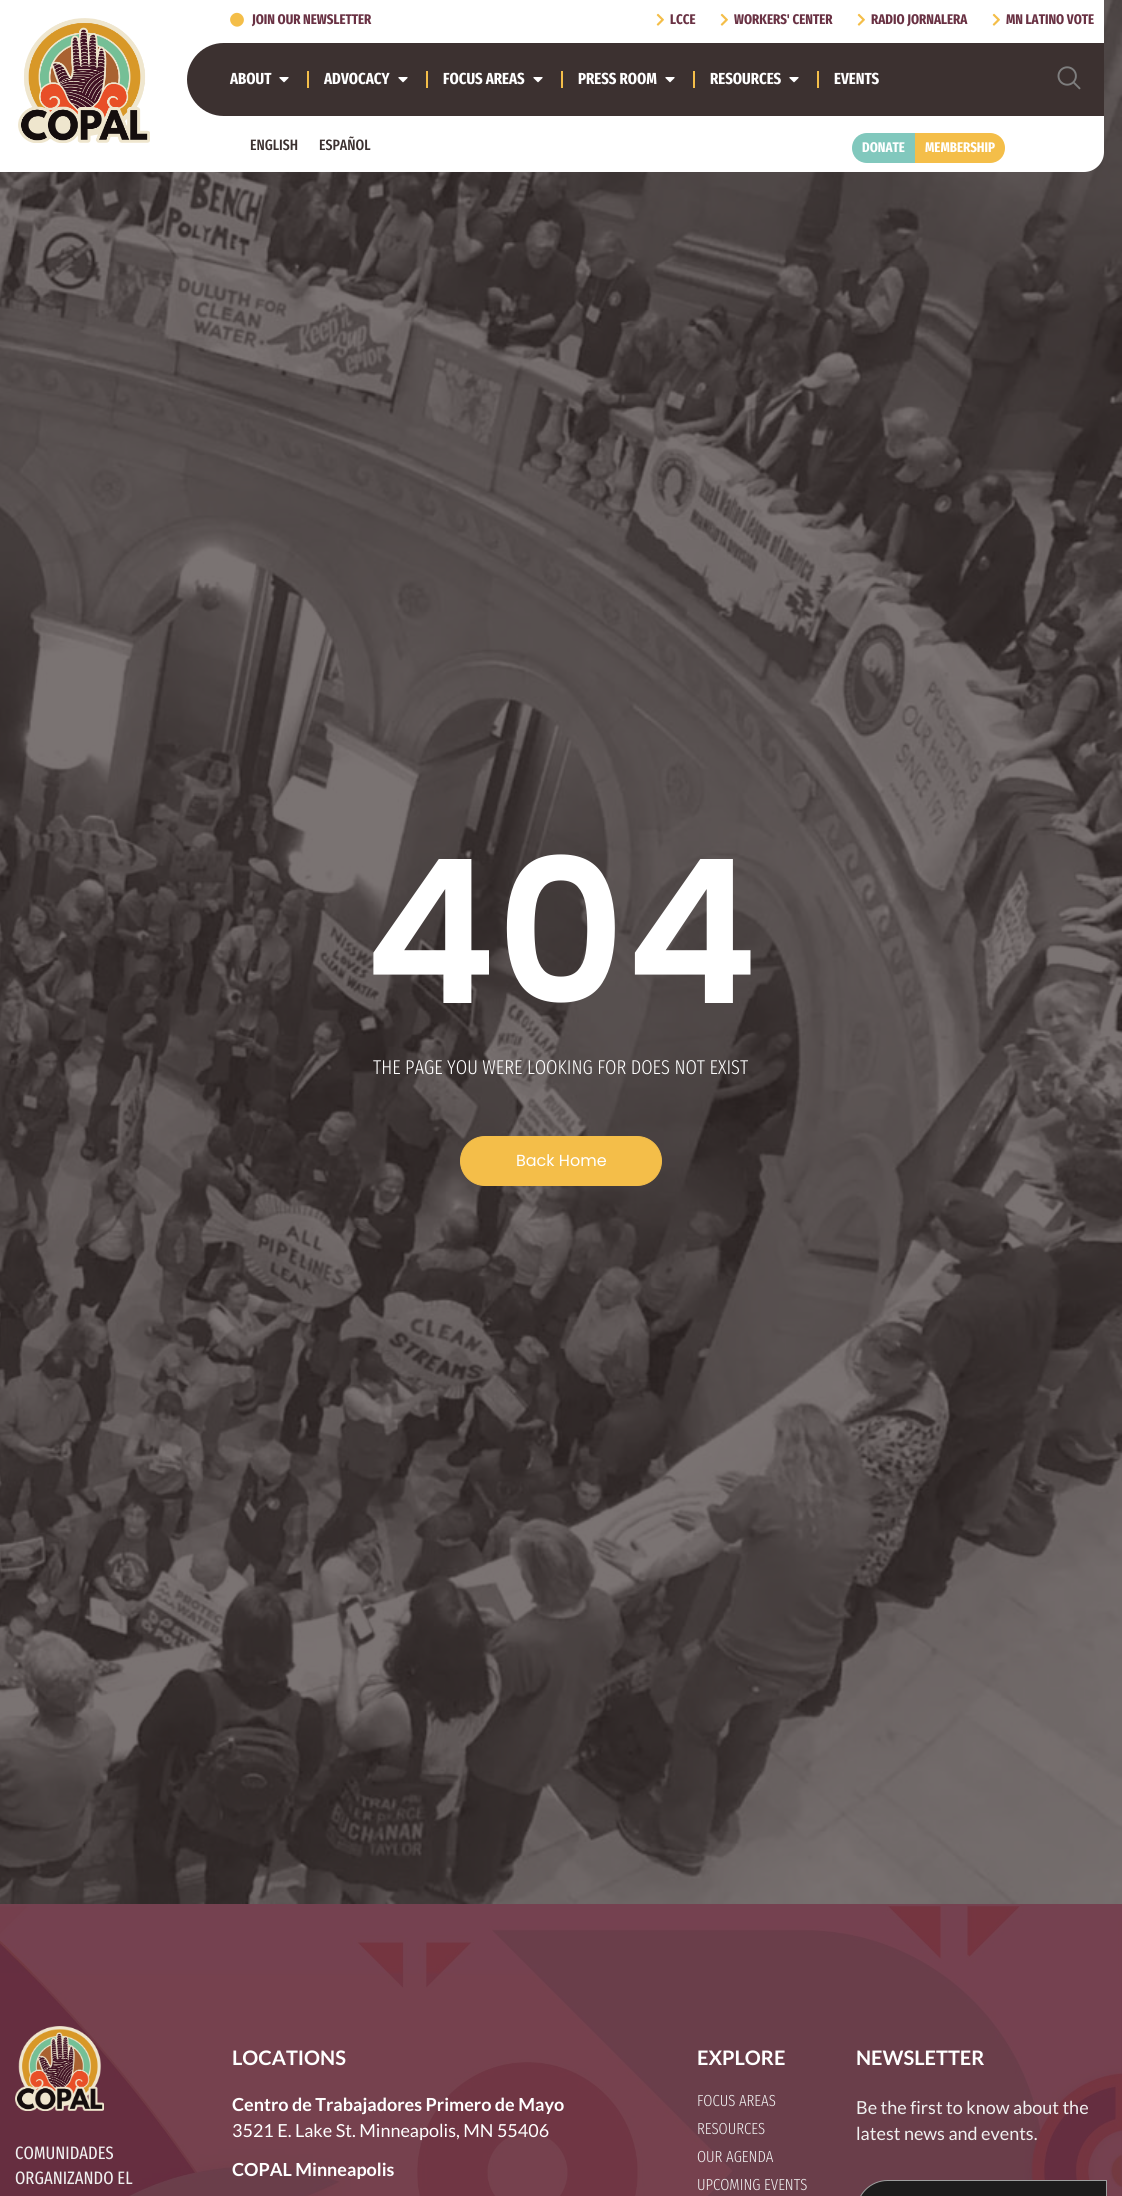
#include <cairo.h>
#include <math.h>
#include <stddef.h>


static void round_rect(cairo_t *cr, double x, double y, double w, double h, double r) {
    cairo_new_sub_path(cr);
    cairo_arc(cr, x + w - r, y + h - r, r, 0, M_PI / 2);
    cairo_arc(cr, x + r, y + h - r, r, M_PI / 2, M_PI);
    cairo_arc(cr, x + r, y + r, r, M_PI, 1.5 * M_PI);
    cairo_arc(cr, x + w - r, y + r, r, 1.5 * M_PI, 2 * M_PI);
    cairo_close_path(cr);
}

static void picture(cairo_t *cr, const char *path, double x, double y, double w, double h) {
    cairo_surface_t *image = cairo_image_surface_create_from_png(path);
    cairo_save(cr);
    cairo_set_source_surface(cr, image, x, y);
    cairo_rectangle(cr, x, y, w, h);
    cairo_fill(cr);
    cairo_restore(cr);
    cairo_surface_destroy(image);
}

int main(void) {
    cairo_surface_t *surface = cairo_image_surface_create(CAIRO_FORMAT_RGB24, 1122, 2196);
    cairo_t *cr = cairo_create(surface);
    cairo_font_options_t *options = cairo_font_options_create();
    cairo_font_options_set_hint_metrics(options, CAIRO_HINT_METRICS_OFF);
    cairo_font_options_set_hint_style(options, CAIRO_HINT_STYLE_NONE);
    cairo_set_font_options(cr, options);
    cairo_set_miter_limit(cr, 4);
    cairo_set_source_rgb(cr, 1, 1, 1);
    cairo_paint(cr);
    picture(cr, "img5.png", 0, 0, 1122, 1904);
    cairo_set_source_rgb(cr, 1, 1, 1);
    cairo_new_path(cr);
    cairo_move_to(cr, 0, 0);
    cairo_line_to(cr, 1104, 0);
    cairo_line_to(cr, 1104, 152);
    cairo_curve_to(cr, 1104, 163, 1095, 172, 1084, 172);
    cairo_line_to(cr, 0, 172);
    cairo_close_path(cr);
    cairo_fill(cr);
    picture(cr, "img1.png", 18, 18, 132, 125);
    cairo_set_source_rgb(cr, 0.957, 0.745, 0.286);
    cairo_new_path(cr);
    cairo_move_to(cr, 232, 15);
    cairo_curve_to(cr, 238.5, 8.5, 248, 18, 242, 24.5);
    cairo_curve_to(cr, 235.5, 31, 226, 21.5, 232, 15);
    cairo_close_path(cr);
    cairo_fill(cr);
    cairo_select_font_face(cr, "Fira Sans Extra Condensed", CAIRO_FONT_SLANT_NORMAL, CAIRO_FONT_WEIGHT_BOLD);
    cairo_set_font_size(cr, 14);
    cairo_set_source_rgb(cr, 0.412, 0.192, 0.263);
    cairo_move_to(cr, 252, 24);
    cairo_show_text(cr, "JOIN OUR NEWSLETTER");
    picture(cr, "img2.png", 656, 13, 8, 13);
    cairo_move_to(cr, 670, 24);
    cairo_show_text(cr, "LCCE");
    picture(cr, "img2.png", 720, 13, 8, 13);
    cairo_move_to(cr, 734, 24);
    cairo_show_text(cr, "WORKERS' CENTER");
    picture(cr, "img2.png", 857, 13, 8, 13);
    cairo_move_to(cr, 871, 24);
    cairo_show_text(cr, "RADIO JORNALERA");
    picture(cr, "img2.png", 992, 13, 8, 13);
    cairo_move_to(cr, 1006, 24);
    cairo_show_text(cr, "MN LATINO VOTE");
    cairo_set_source_rgb(cr, 0.235, 0.192, 0.188);
    cairo_new_path(cr);
    cairo_move_to(cr, 223.5, 43);
    cairo_line_to(cr, 1104, 43);
    cairo_line_to(cr, 1104, 116);
    cairo_line_to(cr, 223.5, 116);
    cairo_curve_to(cr, 203.5, 116, 187, 99.5, 187, 79.5);
    cairo_curve_to(cr, 187, 59.5, 203.5, 43, 223.5, 43);
    cairo_close_path(cr);
    cairo_fill(cr);
    cairo_set_font_size(cr, 16);
    cairo_set_source_rgb(cr, 1, 1, 1);
    cairo_move_to(cr, 230, 84);
    cairo_show_text(cr, "ABOUT");
    picture(cr, "img3.png", 279, 77, 10, 6);
    cairo_set_source_rgb(cr, 0.957, 0.745, 0.286);
    cairo_rectangle(cr, 307, 71, 2, 17);
    cairo_fill(cr);
    cairo_set_source_rgb(cr, 1, 1, 1);
    cairo_move_to(cr, 324, 84);
    cairo_show_text(cr, "ADVOCACY");
    picture(cr, "img3.png", 398, 77, 10, 6);
    cairo_set_source_rgb(cr, 0.957, 0.745, 0.286);
    cairo_rectangle(cr, 426, 71, 2, 17);
    cairo_fill(cr);
    cairo_set_source_rgb(cr, 1, 1, 1);
    cairo_move_to(cr, 443, 84);
    cairo_show_text(cr, "FOCUS AREAS");
    picture(cr, "img3.png", 533, 77, 10, 6);
    cairo_set_source_rgb(cr, 0.957, 0.745, 0.286);
    cairo_rectangle(cr, 561, 71, 2, 17);
    cairo_fill(cr);
    cairo_set_source_rgb(cr, 1, 1, 1);
    cairo_move_to(cr, 578, 84);
    cairo_show_text(cr, "PRESS ROOM");
    picture(cr, "img3.png", 665, 77, 10, 6);
    cairo_set_source_rgb(cr, 0.957, 0.745, 0.286);
    cairo_rectangle(cr, 693, 71, 2, 17);
    cairo_fill(cr);
    cairo_set_source_rgb(cr, 1, 1, 1);
    cairo_move_to(cr, 710, 84);
    cairo_show_text(cr, "RESOURCES");
    picture(cr, "img3.png", 789, 77, 10, 6);
    cairo_set_source_rgb(cr, 0.957, 0.745, 0.286);
    cairo_rectangle(cr, 817, 71, 2, 17);
    cairo_fill(cr);
    cairo_set_source_rgb(cr, 1, 1, 1);
    cairo_move_to(cr, 834, 84);
    cairo_show_text(cr, "EVENTS");
    picture(cr, "img4.png", 1057, 66, 24, 24);
    cairo_select_font_face(cr, "Fira Sans Extra Condensed Medium", CAIRO_FONT_SLANT_NORMAL, CAIRO_FONT_WEIGHT_NORMAL);
    cairo_set_font_size(cr, 15);
    cairo_set_source_rgb(cr, 0.235, 0.192, 0.188);
    cairo_move_to(cr, 250, 150);
    cairo_show_text(cr, "ENGLISH");
    cairo_move_to(cr, 319, 150);
    cairo_show_text(cr, "ESPAÑOL");
    cairo_set_source_rgb(cr, 0.506, 0.784, 0.741);
    cairo_new_path(cr);
    cairo_move_to(cr, 867, 133);
    cairo_line_to(cr, 915, 133);
    cairo_line_to(cr, 915, 163);
    cairo_line_to(cr, 867, 163);
    cairo_curve_to(cr, 858.5, 163, 852, 156.5, 852, 148);
    cairo_curve_to(cr, 852, 139.5, 858.5, 133, 867, 133);
    cairo_close_path(cr);
    cairo_fill(cr);
    cairo_select_font_face(cr, "Fira Sans Extra Condensed", CAIRO_FONT_SLANT_NORMAL, CAIRO_FONT_WEIGHT_BOLD);
    cairo_set_font_size(cr, 14);
    cairo_set_source_rgb(cr, 1, 1, 1);
    cairo_move_to(cr, 862, 152);
    cairo_show_text(cr, "DONATE");
    cairo_set_source_rgb(cr, 0.957, 0.745, 0.286);
    cairo_new_path(cr);
    cairo_move_to(cr, 915, 133);
    cairo_line_to(cr, 990, 133);
    cairo_curve_to(cr, 998.5, 133, 1005, 139.5, 1005, 148);
    cairo_curve_to(cr, 1005, 156.5, 998.5, 163, 990, 163);
    cairo_line_to(cr, 915, 163);
    cairo_close_path(cr);
    cairo_fill(cr);
    cairo_set_source_rgb(cr, 1, 1, 1);
    cairo_move_to(cr, 925, 152);
    cairo_show_text(cr, "MEMBERSHIP");
    cairo_select_font_face(cr, "Poppins SemiBold", CAIRO_FONT_SLANT_NORMAL, CAIRO_FONT_WEIGHT_NORMAL);
    cairo_set_font_size(cr, 200);
    cairo_move_to(cr, 364, 1003);
    cairo_show_text(cr, "404");
    cairo_select_font_face(cr, "Fira Sans Extra Condensed Light", CAIRO_FONT_SLANT_NORMAL, CAIRO_FONT_WEIGHT_NORMAL);
    cairo_set_font_size(cr, 20);
    cairo_move_to(cr, 373, 1074);
    cairo_show_text(cr, "THE PAGE YOU WERE LOOKING FOR DOES NOT EXIST");
    cairo_set_source_rgb(cr, 0.957, 0.745, 0.286);
    round_rect(cr, 460.5, 1136.5, 201, 49, 24.5);
    cairo_fill_preserve(cr);
    cairo_set_line_width(cr, 1);
    cairo_stroke(cr);
    cairo_select_font_face(cr, "Poppins", CAIRO_FONT_SLANT_NORMAL, CAIRO_FONT_WEIGHT_NORMAL);
    cairo_set_font_size(cr, 16);
    cairo_set_source_rgb(cr, 1, 1, 1);
    cairo_move_to(cr, 516, 1166);
    cairo_show_text(cr, "Back Home");
    picture(cr, "img6.png", 0, 1904, 1122, 292);
    cairo_select_font_face(cr, "Lato", CAIRO_FONT_SLANT_NORMAL, CAIRO_FONT_WEIGHT_BOLD);
    cairo_set_font_size(cr, 20);
    cairo_move_to(cr, 232, 2065);
    cairo_show_text(cr, "LOCATIONS");
    cairo_set_font_size(cr, 18);
    cairo_move_to(cr, 232, 2111);
    cairo_show_text(cr, "Centro de Trabajadores Primero de Mayo");
    cairo_select_font_face(cr, "Lato", CAIRO_FONT_SLANT_NORMAL, CAIRO_FONT_WEIGHT_NORMAL);
    cairo_move_to(cr, 232, 2137);
    cairo_show_text(cr, "3521 E. Lake St. Minneapolis, MN 55406");
    cairo_select_font_face(cr, "Lato", CAIRO_FONT_SLANT_NORMAL, CAIRO_FONT_WEIGHT_BOLD);
    cairo_move_to(cr, 232, 2176);
    cairo_show_text(cr, "COPAL Minneapolis");
    cairo_set_font_size(cr, 20);
    cairo_move_to(cr, 697, 2065);
    cairo_show_text(cr, "EXPLORE");
    cairo_select_font_face(cr, "Fira Sans Extra Condensed Light", CAIRO_FONT_SLANT_NORMAL, CAIRO_FONT_WEIGHT_NORMAL);
    cairo_set_font_size(cr, 16);
    cairo_set_source_rgb(cr, 0.941, 0.941, 0.941);
    cairo_move_to(cr, 697, 2106);
    cairo_show_text(cr, "FOCUS AREAS");
    cairo_move_to(cr, 697, 2134);
    cairo_show_text(cr, "RESOURCES");
    cairo_move_to(cr, 697, 2162);
    cairo_show_text(cr, "OUR AGENDA");
    cairo_move_to(cr, 697, 2190);
    cairo_show_text(cr, "UPCOMING EVENTS");
    cairo_select_font_face(cr, "Lato", CAIRO_FONT_SLANT_NORMAL, CAIRO_FONT_WEIGHT_BOLD);
    cairo_set_font_size(cr, 20);
    cairo_set_source_rgb(cr, 1, 1, 1);
    cairo_move_to(cr, 856, 2065);
    cairo_show_text(cr, "NEWSLETTER");
    cairo_select_font_face(cr, "Lato", CAIRO_FONT_SLANT_NORMAL, CAIRO_FONT_WEIGHT_NORMAL);
    cairo_set_font_size(cr, 18);
    cairo_set_source_rgb(cr, 0.941, 0.941, 0.941);
    cairo_move_to(cr, 856, 2114);
    cairo_show_text(cr, "Be the first to know about the");
    cairo_move_to(cr, 856, 2140);
    cairo_show_text(cr, "latest news and events.");
    cairo_set_source_rgb(cr, 0.114, 0.11, 0.11);
    cairo_new_path(cr);
    cairo_move_to(cr, 887.5, 2180.5);
    cairo_line_to(cr, 1106.5, 2180.5);
    cairo_line_to(cr, 1106.5, 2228.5);
    cairo_line_to(cr, 887.5, 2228.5);
    cairo_curve_to(cr, 870.5, 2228.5, 856.5, 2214.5, 856.5, 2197.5);
    cairo_line_to(cr, 856.5, 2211.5);
    cairo_curve_to(cr, 856.5, 2194.5, 870.5, 2180.5, 887.5, 2180.5);
    cairo_close_path(cr);
    cairo_fill_preserve(cr);
    cairo_set_source_rgb(cr, 0.62, 0.62, 0.62);
    cairo_stroke(cr);
    picture(cr, "img7.png", 15, 2026, 89, 85);
    cairo_select_font_face(cr, "Fira Sans Extra Condensed", CAIRO_FONT_SLANT_NORMAL, CAIRO_FONT_WEIGHT_NORMAL);
    cairo_set_source_rgb(cr, 0.941, 0.941, 0.941);
    cairo_move_to(cr, 15, 2159);
    cairo_show_text(cr, "COMUNIDADES");
    cairo_move_to(cr, 15, 2184);
    cairo_show_text(cr, "ORGANIZANDO EL");
    cairo_surface_write_to_png(surface, "page.png");
    cairo_font_options_destroy(options);
    cairo_destroy(cr);
    cairo_surface_destroy(surface);
    return 0;
}
